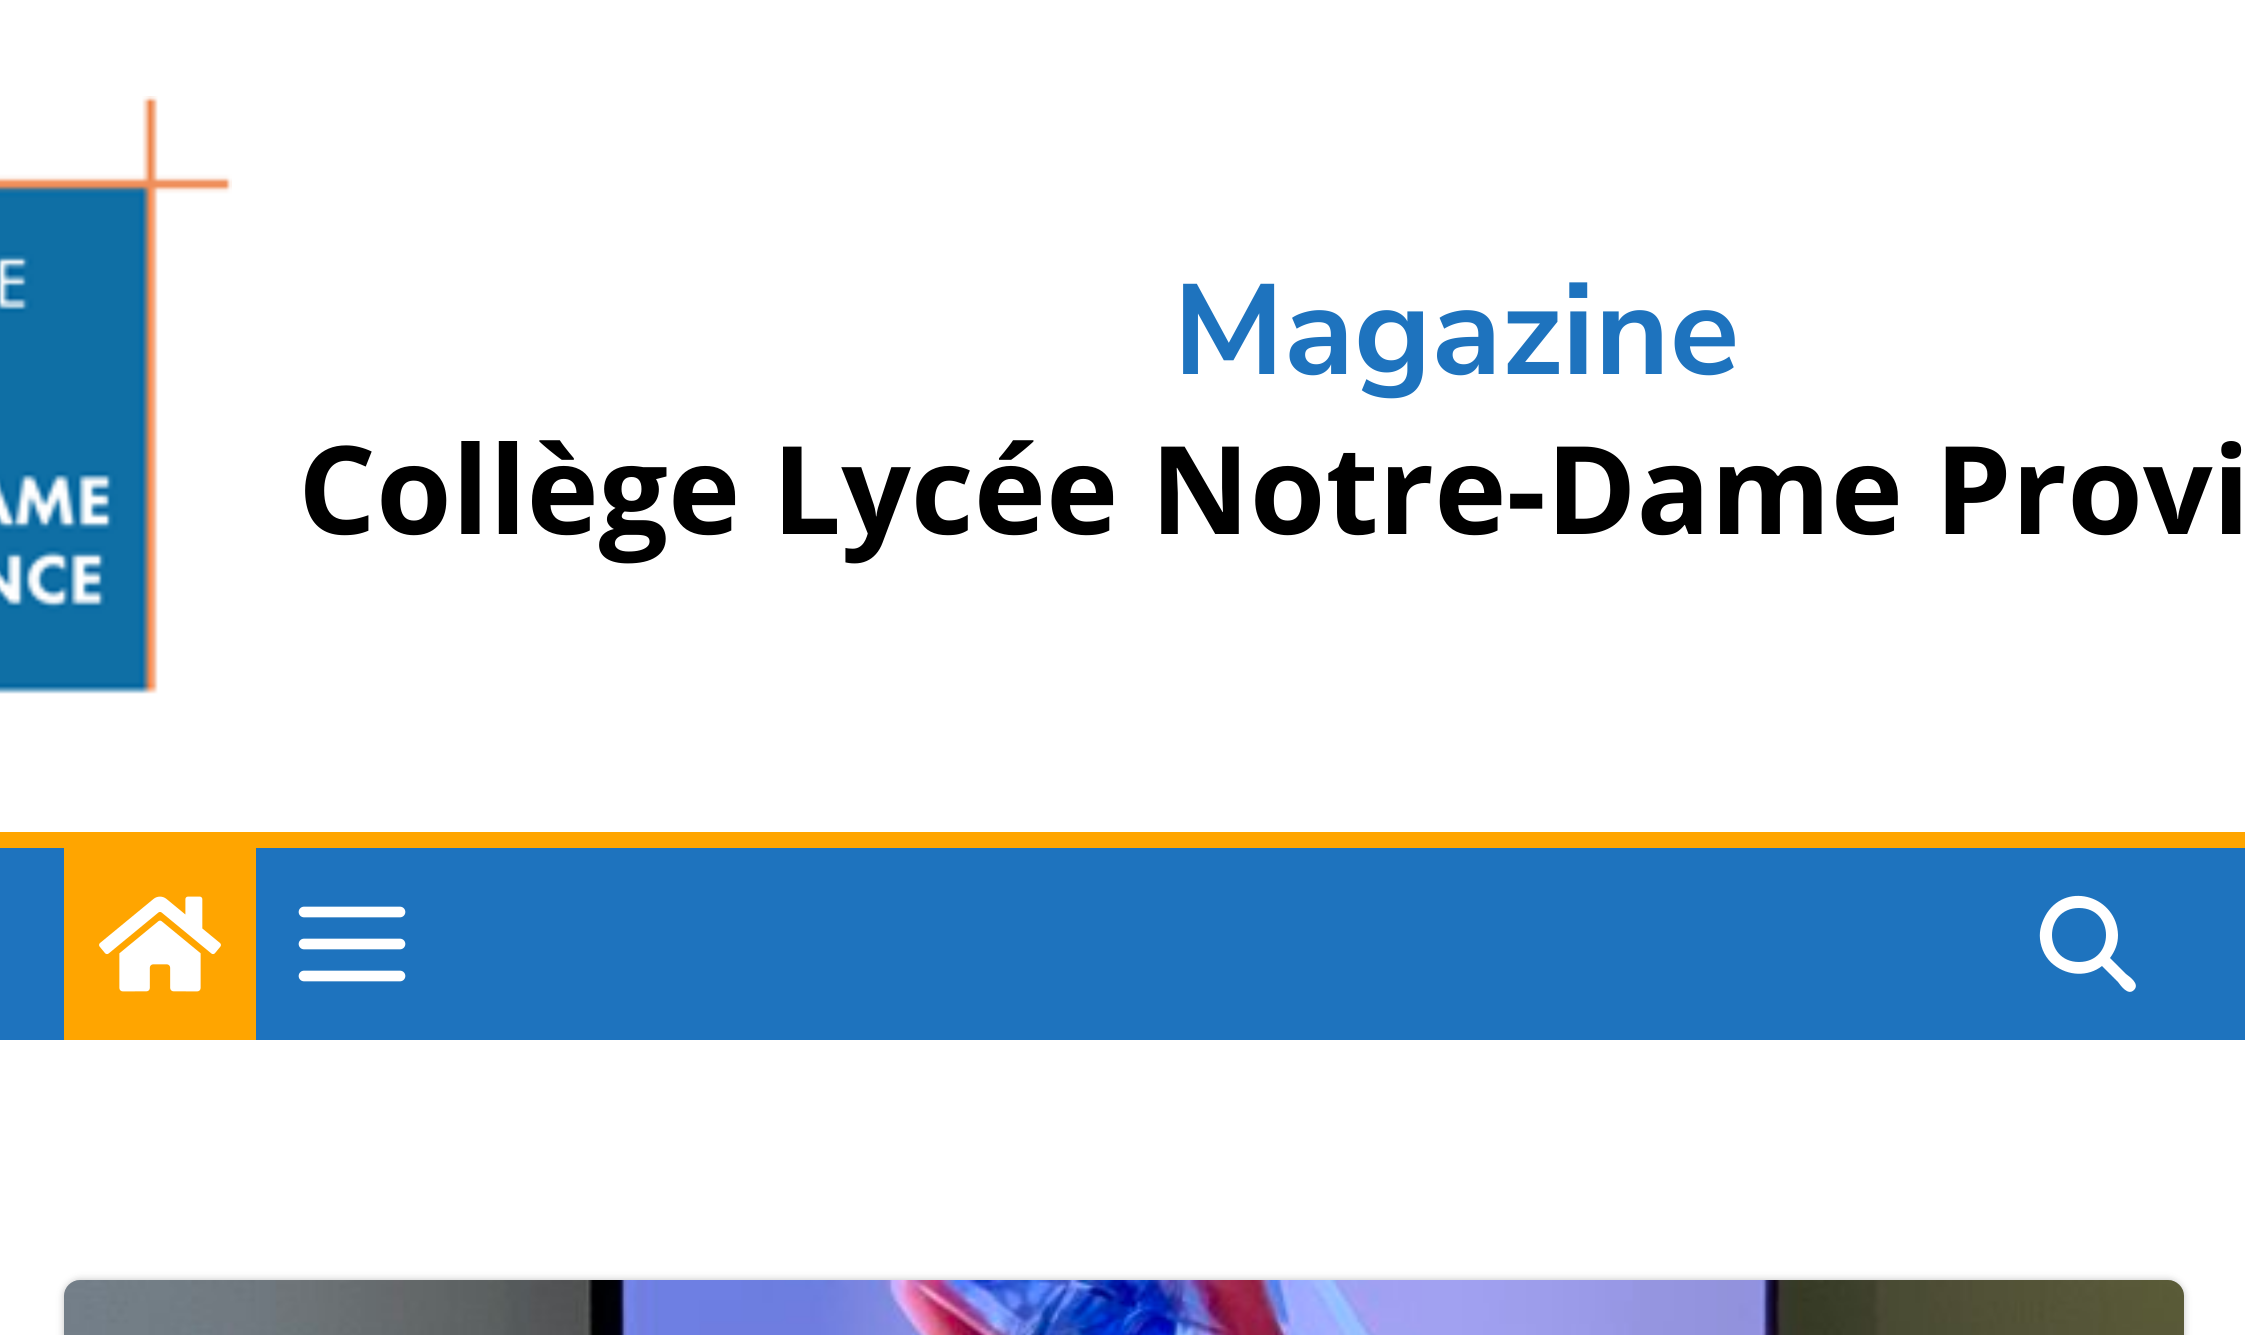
#include <cairo.h>
#include <math.h>
#include <stddef.h>


static void round_rect(cairo_t *cr, double x, double y, double w, double h, double r) {
    cairo_new_sub_path(cr);
    cairo_arc(cr, x + w - r, y + h - r, r, 0, M_PI / 2);
    cairo_arc(cr, x + r, y + h - r, r, M_PI / 2, M_PI);
    cairo_arc(cr, x + r, y + r, r, M_PI, 1.5 * M_PI);
    cairo_arc(cr, x + w - r, y + r, r, 1.5 * M_PI, 2 * M_PI);
    cairo_close_path(cr);
}

static void shadow(cairo_t *cr, double x, double y, double w, double h, double r, double blur, double alpha) {
    cairo_push_group_with_content(cr, CAIRO_CONTENT_ALPHA);
    cairo_set_operator(cr, CAIRO_OPERATOR_SOURCE);
    for (int i = 15; i >= -15 && fmin(w, h) + blur * i / 3 > 0; i -= 2) {
        double e = blur * i / 6;
        cairo_set_source_rgba(cr, 0, 0, 0, alpha * erfc((i - 1) / 8.5) / 2);
        round_rect(cr, x - e, y - e, w + 2 * e, h + 2 * e, fmax(0, fmin(r + e + blur * .6, fmin(w, h) / 2 + e)));
        cairo_fill(cr);
    }
    cairo_pattern_t *soft = cairo_pop_group(cr);
    cairo_mask(cr, soft);
    cairo_pattern_destroy(soft);
}

static void picture(cairo_t *cr, const char *path, double x, double y, double w, double h) {
    cairo_surface_t *image = cairo_image_surface_create_from_png(path);
    cairo_save(cr);
    cairo_set_source_surface(cr, image, x, y);
    cairo_rectangle(cr, x, y, w, h);
    cairo_fill(cr);
    cairo_restore(cr);
    cairo_surface_destroy(image);
}

int main(void) {
    cairo_surface_t *surface = cairo_image_surface_create(CAIRO_FORMAT_RGB24, 2245, 1335);
    cairo_t *cr = cairo_create(surface);
    cairo_font_options_t *options = cairo_font_options_create();
    cairo_font_options_set_hint_metrics(options, CAIRO_HINT_METRICS_OFF);
    cairo_font_options_set_hint_style(options, CAIRO_HINT_STYLE_NONE);
    cairo_set_font_options(cr, options);
    cairo_set_miter_limit(cr, 4);
    cairo_set_source_rgb(cr, 1, 1, 1);
    cairo_paint(cr);
    picture(cr, "img1.png", 0, 96, 232, 598);
    cairo_select_font_face(cr, "Nunito Sans", CAIRO_FONT_SLANT_NORMAL, CAIRO_FONT_WEIGHT_BOLD);
    cairo_set_font_size(cr, 128);
    cairo_set_source_rgb(cr, 0.118, 0.451, 0.745);
    cairo_move_to(cr, 1173, 374);
    cairo_show_text(cr, "Magazine");
    cairo_select_font_face(cr, "Open Sans", CAIRO_FONT_SLANT_NORMAL, CAIRO_FONT_WEIGHT_BOLD);
    cairo_set_font_size(cr, 122.4);
    cairo_set_source_rgb(cr, 0, 0, 0);
    cairo_move_to(cr, 298, 534);
    cairo_show_text(cr, "Collège Lycée Notre-Dame Provi");
    cairo_set_source_rgb(cr, 0.118, 0.451, 0.745);
    cairo_rectangle(cr, 0, 848, 2245, 192);
    cairo_fill(cr);
    cairo_set_source_rgb(cr, 1, 0.647, 0);
    cairo_rectangle(cr, 0, 832, 2245, 16);
    cairo_fill(cr);
    cairo_rectangle(cr, 64, 848, 192, 192);
    cairo_fill(cr);
    picture(cr, "img2.png", 99, 896, 122, 96);
    picture(cr, "img3.png", 298, 906, 108, 76);
    cairo_set_source_rgb(cr, 1, 1, 1);
    cairo_new_path(cr);
    cairo_move_to(cr, 2118, 935);
    cairo_curve_to(cr, 2118, 944, 2115, 951, 2110, 958);
    cairo_line_to(cr, 2126, 974);
    cairo_curve_to(cr, 2130, 977, 2140, 984, 2134, 990);
    cairo_curve_to(cr, 2128, 996, 2121, 986, 2118, 982);
    cairo_line_to(cr, 2102, 966);
    cairo_curve_to(cr, 2088, 977, 2068, 976, 2054, 965);
    cairo_curve_to(cr, 2046, 959, 2041, 949, 2040, 939);
    cairo_curve_to(cr, 2039, 930, 2042, 921, 2047, 913);
    cairo_curve_to(cr, 2068, 881, 2117, 897, 2118, 935);
    cairo_close_path(cr);
    cairo_move_to(cr, 2079, 962);
    cairo_curve_to(cr, 2115, 962, 2115, 908, 2079, 908);
    cairo_curve_to(cr, 2043, 908, 2043, 962, 2079, 962);
    cairo_close_path(cr);
    cairo_fill(cr);
    cairo_set_source_rgb(cr, 0, 0, 0);
    shadow(cr, 64, 1280, 2120, 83, 16, 4, 0.24);
    picture(cr, "img4.png", 64, 1280, 2120, 55);
    cairo_surface_write_to_png(surface, "page.png");
    cairo_font_options_destroy(options);
    cairo_destroy(cr);
    cairo_surface_destroy(surface);
    return 0;
}
